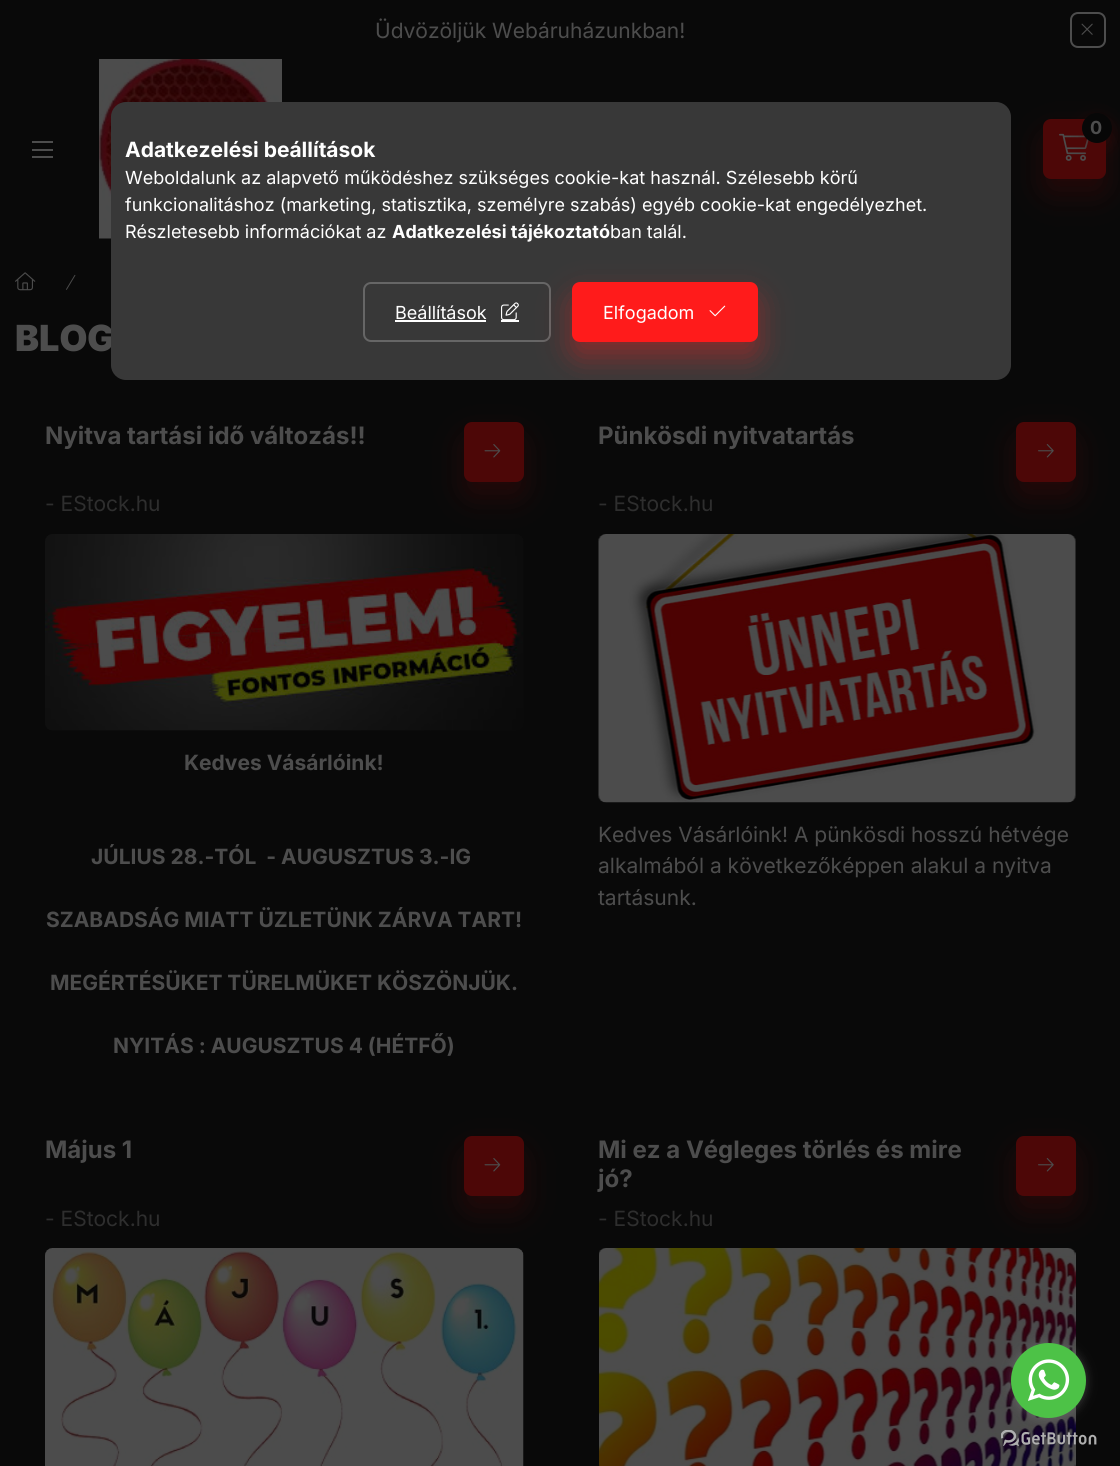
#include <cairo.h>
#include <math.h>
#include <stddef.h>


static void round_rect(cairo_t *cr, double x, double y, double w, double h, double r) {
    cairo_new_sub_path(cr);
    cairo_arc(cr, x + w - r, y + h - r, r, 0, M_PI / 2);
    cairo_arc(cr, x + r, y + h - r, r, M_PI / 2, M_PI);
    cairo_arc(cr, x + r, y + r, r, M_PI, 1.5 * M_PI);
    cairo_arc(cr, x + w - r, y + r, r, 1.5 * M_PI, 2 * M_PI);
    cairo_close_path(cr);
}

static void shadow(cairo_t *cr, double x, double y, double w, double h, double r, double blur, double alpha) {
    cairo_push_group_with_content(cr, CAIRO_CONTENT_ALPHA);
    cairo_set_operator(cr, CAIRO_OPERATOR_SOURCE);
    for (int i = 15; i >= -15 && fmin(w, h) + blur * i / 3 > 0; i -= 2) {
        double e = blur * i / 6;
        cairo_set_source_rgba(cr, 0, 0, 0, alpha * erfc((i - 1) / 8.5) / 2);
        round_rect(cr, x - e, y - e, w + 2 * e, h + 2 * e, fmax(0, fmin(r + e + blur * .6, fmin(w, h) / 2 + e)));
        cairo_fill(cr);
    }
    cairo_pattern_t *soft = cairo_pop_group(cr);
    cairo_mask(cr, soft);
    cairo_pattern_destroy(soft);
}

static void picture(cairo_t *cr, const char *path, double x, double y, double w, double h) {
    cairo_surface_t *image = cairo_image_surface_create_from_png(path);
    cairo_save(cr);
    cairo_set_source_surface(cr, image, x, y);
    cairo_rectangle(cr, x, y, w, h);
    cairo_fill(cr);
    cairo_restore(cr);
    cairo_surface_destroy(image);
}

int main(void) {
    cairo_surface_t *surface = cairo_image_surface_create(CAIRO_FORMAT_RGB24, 1120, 1466);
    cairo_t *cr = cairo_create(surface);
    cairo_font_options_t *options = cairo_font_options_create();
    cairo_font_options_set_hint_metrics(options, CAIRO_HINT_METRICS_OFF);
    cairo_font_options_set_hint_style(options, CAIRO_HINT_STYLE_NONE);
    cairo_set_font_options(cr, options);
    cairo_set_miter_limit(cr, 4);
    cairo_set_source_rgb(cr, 0.039, 0.039, 0.039);
    cairo_paint(cr);
    cairo_select_font_face(cr, "Inter", CAIRO_FONT_SLANT_NORMAL, CAIRO_FONT_WEIGHT_NORMAL);
    cairo_set_font_size(cr, 21);
    cairo_set_source_rgb(cr, 0.302, 0.302, 0.302);
    cairo_move_to(cr, 375, 38);
    cairo_show_text(cr, "Üdvözöljük Webáruházunkban!");
    round_rect(cr, 1071, 13, 34, 34, 7);
    cairo_stroke(cr);
    picture(cr, "img1.png", 1081, 23, 12, 12);
    cairo_rectangle(cr, 32, 141, 21, 2);
    cairo_fill(cr);
    cairo_rectangle(cr, 32, 149, 21, 2);
    cairo_fill(cr);
    cairo_rectangle(cr, 32, 156, 21, 2);
    cairo_fill(cr);
    picture(cr, "img2.png", 99, 59, 183, 180);
    cairo_set_source_rgb(cr, 0.302, 0.031, 0.031);
    shadow(cr, 1043, 134, 63, 60, 8, 15, 0.4);
    cairo_set_source_rgb(cr, 0.302, 0.031, 0.031);
    round_rect(cr, 1043, 119, 63, 60, 8);
    cairo_fill(cr);
    picture(cr, "img3.png", 1059, 133, 30, 28);
    cairo_set_source_rgb(cr, 0.302, 0.031, 0.031);
    shadow(cr, 1082, 120, 30, 30, 15, 7.5, 0.4);
    cairo_set_source_rgb(cr, 0.031, 0.031, 0.031);
    cairo_arc(cr, 1097, 128, 15, 0, 2 * M_PI);
    cairo_fill(cr);
    cairo_select_font_face(cr, "Inter", CAIRO_FONT_SLANT_NORMAL, CAIRO_FONT_WEIGHT_BOLD);
    cairo_set_font_size(cr, 18);
    cairo_set_source_rgb(cr, 0.302, 0.302, 0.302);
    cairo_move_to(cr, 1090, 134);
    cairo_show_text(cr, "0");
    picture(cr, "img4.png", 15, 272, 21, 19);
    picture(cr, "img5.png", 66, 274, 10, 16);
    cairo_select_font_face(cr, "Inter Black", CAIRO_FONT_SLANT_NORMAL, CAIRO_FONT_WEIGHT_NORMAL);
    cairo_set_font_size(cr, 36);
    cairo_move_to(cr, 15, 351);
    cairo_show_text(cr, "BLOG");
    cairo_select_font_face(cr, "Inter", CAIRO_FONT_SLANT_NORMAL, CAIRO_FONT_WEIGHT_BOLD);
    cairo_set_font_size(cr, 24);
    cairo_move_to(cr, 45, 444);
    cairo_show_text(cr, "Nyitva tartási idő változás!!");
    cairo_set_source_rgb(cr, 0.302, 0.031, 0.031);
    shadow(cr, 464, 437, 60, 60, 8, 15, 0.4);
    cairo_set_source_rgb(cr, 0.302, 0.031, 0.031);
    round_rect(cr, 465, 423, 58, 58, 7);
    cairo_fill_preserve(cr);
    cairo_stroke(cr);
    picture(cr, "img6.png", 484, 444, 17, 14);
    cairo_select_font_face(cr, "Inter", CAIRO_FONT_SLANT_NORMAL, CAIRO_FONT_WEIGHT_NORMAL);
    cairo_set_font_size(cr, 21);
    cairo_set_source_rgb(cr, 0.18, 0.18, 0.18);
    cairo_move_to(cr, 45, 511);
    cairo_show_text(cr, "- EStock.hu");
    picture(cr, "img7.png", 45, 534, 479, 197);
    cairo_select_font_face(cr, "Inter", CAIRO_FONT_SLANT_NORMAL, CAIRO_FONT_WEIGHT_BOLD);
    cairo_set_source_rgb(cr, 0.302, 0.302, 0.302);
    cairo_move_to(cr, 184, 770);
    cairo_show_text(cr, "Kedves Vásárlóink!");
    cairo_move_to(cr, 91, 864);
    cairo_show_text(cr, "JÚLIUS 28.-TÓL  - AUGUSZTUS 3.-IG");
    cairo_move_to(cr, 46, 927);
    cairo_show_text(cr, "SZABADSÁG MIATT ÜZLETÜNK ZÁRVA TART!");
    cairo_move_to(cr, 50, 990);
    cairo_show_text(cr, "MEGÉRTÉSÜKET TÜRELMÜKET KÖSZÖNJÜK.");
    cairo_move_to(cr, 113, 1053);
    cairo_show_text(cr, "NYITÁS : AUGUSZTUS 4 (HÉTFŐ)");
    cairo_set_font_size(cr, 24);
    cairo_move_to(cr, 598, 444);
    cairo_show_text(cr, "Pünkösdi nyitvatartás");
    cairo_set_source_rgb(cr, 0.302, 0.031, 0.031);
    shadow(cr, 1016, 437, 60, 60, 8, 15, 0.4);
    cairo_set_source_rgb(cr, 0.302, 0.031, 0.031);
    round_rect(cr, 1017, 423, 58, 58, 7);
    cairo_fill_preserve(cr);
    cairo_stroke(cr);
    picture(cr, "img8.png", 1038, 444, 16, 14);
    cairo_select_font_face(cr, "Inter", CAIRO_FONT_SLANT_NORMAL, CAIRO_FONT_WEIGHT_NORMAL);
    cairo_set_font_size(cr, 21);
    cairo_set_source_rgb(cr, 0.18, 0.18, 0.18);
    cairo_move_to(cr, 598, 511);
    cairo_show_text(cr, "- EStock.hu");
    picture(cr, "img9.png", 598, 534, 478, 269);
    cairo_set_source_rgb(cr, 0.302, 0.302, 0.302);
    cairo_move_to(cr, 598, 842);
    cairo_show_text(cr, "Kedves Vásárlóink! A pünkösdi hosszú hétvége");
    cairo_move_to(cr, 598, 873);
    cairo_show_text(cr, "alkalmából a következőképpen alakul a nyitva");
    cairo_move_to(cr, 598, 905);
    cairo_show_text(cr, "tartásunk.");
    cairo_select_font_face(cr, "Inter", CAIRO_FONT_SLANT_NORMAL, CAIRO_FONT_WEIGHT_BOLD);
    cairo_set_font_size(cr, 24);
    cairo_move_to(cr, 45, 1158);
    cairo_show_text(cr, "Május 1");
    cairo_set_source_rgb(cr, 0.302, 0.031, 0.031);
    shadow(cr, 464, 1151, 60, 60, 8, 15, 0.4);
    cairo_set_source_rgb(cr, 0.302, 0.031, 0.031);
    round_rect(cr, 465, 1137, 58, 58, 7);
    cairo_fill_preserve(cr);
    cairo_stroke(cr);
    picture(cr, "img6.png", 484, 1158, 17, 14);
    cairo_select_font_face(cr, "Inter", CAIRO_FONT_SLANT_NORMAL, CAIRO_FONT_WEIGHT_NORMAL);
    cairo_set_font_size(cr, 21);
    cairo_set_source_rgb(cr, 0.18, 0.18, 0.18);
    cairo_move_to(cr, 45, 1226);
    cairo_show_text(cr, "- EStock.hu");
    picture(cr, "img10.png", 45, 1248, 479, 218);
    cairo_select_font_face(cr, "Inter", CAIRO_FONT_SLANT_NORMAL, CAIRO_FONT_WEIGHT_BOLD);
    cairo_set_font_size(cr, 24);
    cairo_set_source_rgb(cr, 0.302, 0.302, 0.302);
    cairo_move_to(cr, 598, 1158);
    cairo_show_text(cr, "Mi ez a Végleges törlés és mire");
    cairo_move_to(cr, 598, 1187);
    cairo_show_text(cr, "jó?");
    cairo_set_source_rgb(cr, 0.302, 0.031, 0.031);
    shadow(cr, 1016, 1151, 60, 60, 8, 15, 0.4);
    cairo_set_source_rgb(cr, 0.302, 0.031, 0.031);
    round_rect(cr, 1017, 1137, 58, 58, 7);
    cairo_fill_preserve(cr);
    cairo_stroke(cr);
    picture(cr, "img8.png", 1038, 1158, 16, 14);
    cairo_select_font_face(cr, "Inter", CAIRO_FONT_SLANT_NORMAL, CAIRO_FONT_WEIGHT_NORMAL);
    cairo_set_font_size(cr, 21);
    cairo_set_source_rgb(cr, 0.18, 0.18, 0.18);
    cairo_move_to(cr, 598, 1226);
    cairo_show_text(cr, "- EStock.hu");
    picture(cr, "img11.png", 599, 1248, 477, 218);
    cairo_set_source_rgb(cr, 0.22, 0.22, 0.22);
    round_rect(cr, 111, 102, 900, 278, 15);
    cairo_fill(cr);
    cairo_select_font_face(cr, "Inter", CAIRO_FONT_SLANT_NORMAL, CAIRO_FONT_WEIGHT_BOLD);
    cairo_set_source_rgb(cr, 1, 1, 1);
    cairo_move_to(cr, 125, 157);
    cairo_show_text(cr, "Adatkezelési beállítások");
    cairo_select_font_face(cr, "Inter", CAIRO_FONT_SLANT_NORMAL, CAIRO_FONT_WEIGHT_NORMAL);
    cairo_set_font_size(cr, 18);
    cairo_move_to(cr, 125, 184);
    cairo_show_text(cr, "Weboldalunk az alapvető működéshez szükséges cookie-kat használ. Szélesebb körű");
    cairo_move_to(cr, 125, 211);
    cairo_show_text(cr, "funkcionalitáshoz (marketing, statisztika, személyre szabás) egyéb cookie-kat engedélyezhet.");
    cairo_move_to(cr, 125, 238);
    cairo_show_text(cr, "Részletesebb információkat az");
    cairo_select_font_face(cr, "Inter", CAIRO_FONT_SLANT_NORMAL, CAIRO_FONT_WEIGHT_BOLD);
    cairo_move_to(cr, 392, 238);
    cairo_show_text(cr, "Adatkezelési tájékoztató");
    cairo_select_font_face(cr, "Inter", CAIRO_FONT_SLANT_NORMAL, CAIRO_FONT_WEIGHT_NORMAL);
    cairo_move_to(cr, 610, 238);
    cairo_show_text(cr, "ban talál.");
    round_rect(cr, 364, 283, 186, 58, 7);
    cairo_set_source_rgb(cr, 0.4, 0.4, 0.4);
    cairo_stroke(cr);
    cairo_set_source_rgb(cr, 1, 1, 1);
    cairo_move_to(cr, 395, 319);
    cairo_show_text(cr, "Beállítások");
    cairo_rectangle(cr, 395, 320, 91, 2);
    cairo_fill(cr);
    picture(cr, "img12.png", 501, 302, 18, 18);
    cairo_rectangle(cr, 501, 320, 18, 2);
    cairo_fill(cr);
    cairo_save(cr);
    round_rect(cr, 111, 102, 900, 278, 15);
    cairo_clip(cr);
    cairo_set_source_rgb(cr, 1, 0.106, 0.106);
    shadow(cr, 572, 297, 186, 60, 8, 15, 0.4);
    cairo_restore(cr);
    cairo_set_source_rgb(cr, 1, 0.106, 0.106);
    round_rect(cr, 573, 283, 184, 58, 7);
    cairo_fill_preserve(cr);
    cairo_stroke(cr);
    cairo_set_source_rgb(cr, 1, 1, 1);
    cairo_move_to(cr, 603, 319);
    cairo_show_text(cr, "Elfogadom");
    picture(cr, "img13.png", 709, 305, 17, 12);
    picture(cr, "img15.png", 1001, 1430, 96, 16);
    cairo_set_source_rgb(cr, 0.533, 0.533, 0.533);
    shadow(cr, 1011, 1344, 75, 75, 37.5, 5, 0.4);
    cairo_set_source_rgb(cr, 0.302, 0.761, 0.278);
    cairo_arc(cr, 1048.5, 1380.5, 37.5, 0, 2 * M_PI);
    cairo_fill(cr);
    picture(cr, "img14.png", 1028, 1359, 42, 42);
    cairo_surface_write_to_png(surface, "page.png");
    cairo_font_options_destroy(options);
    cairo_destroy(cr);
    cairo_surface_destroy(surface);
    return 0;
}
